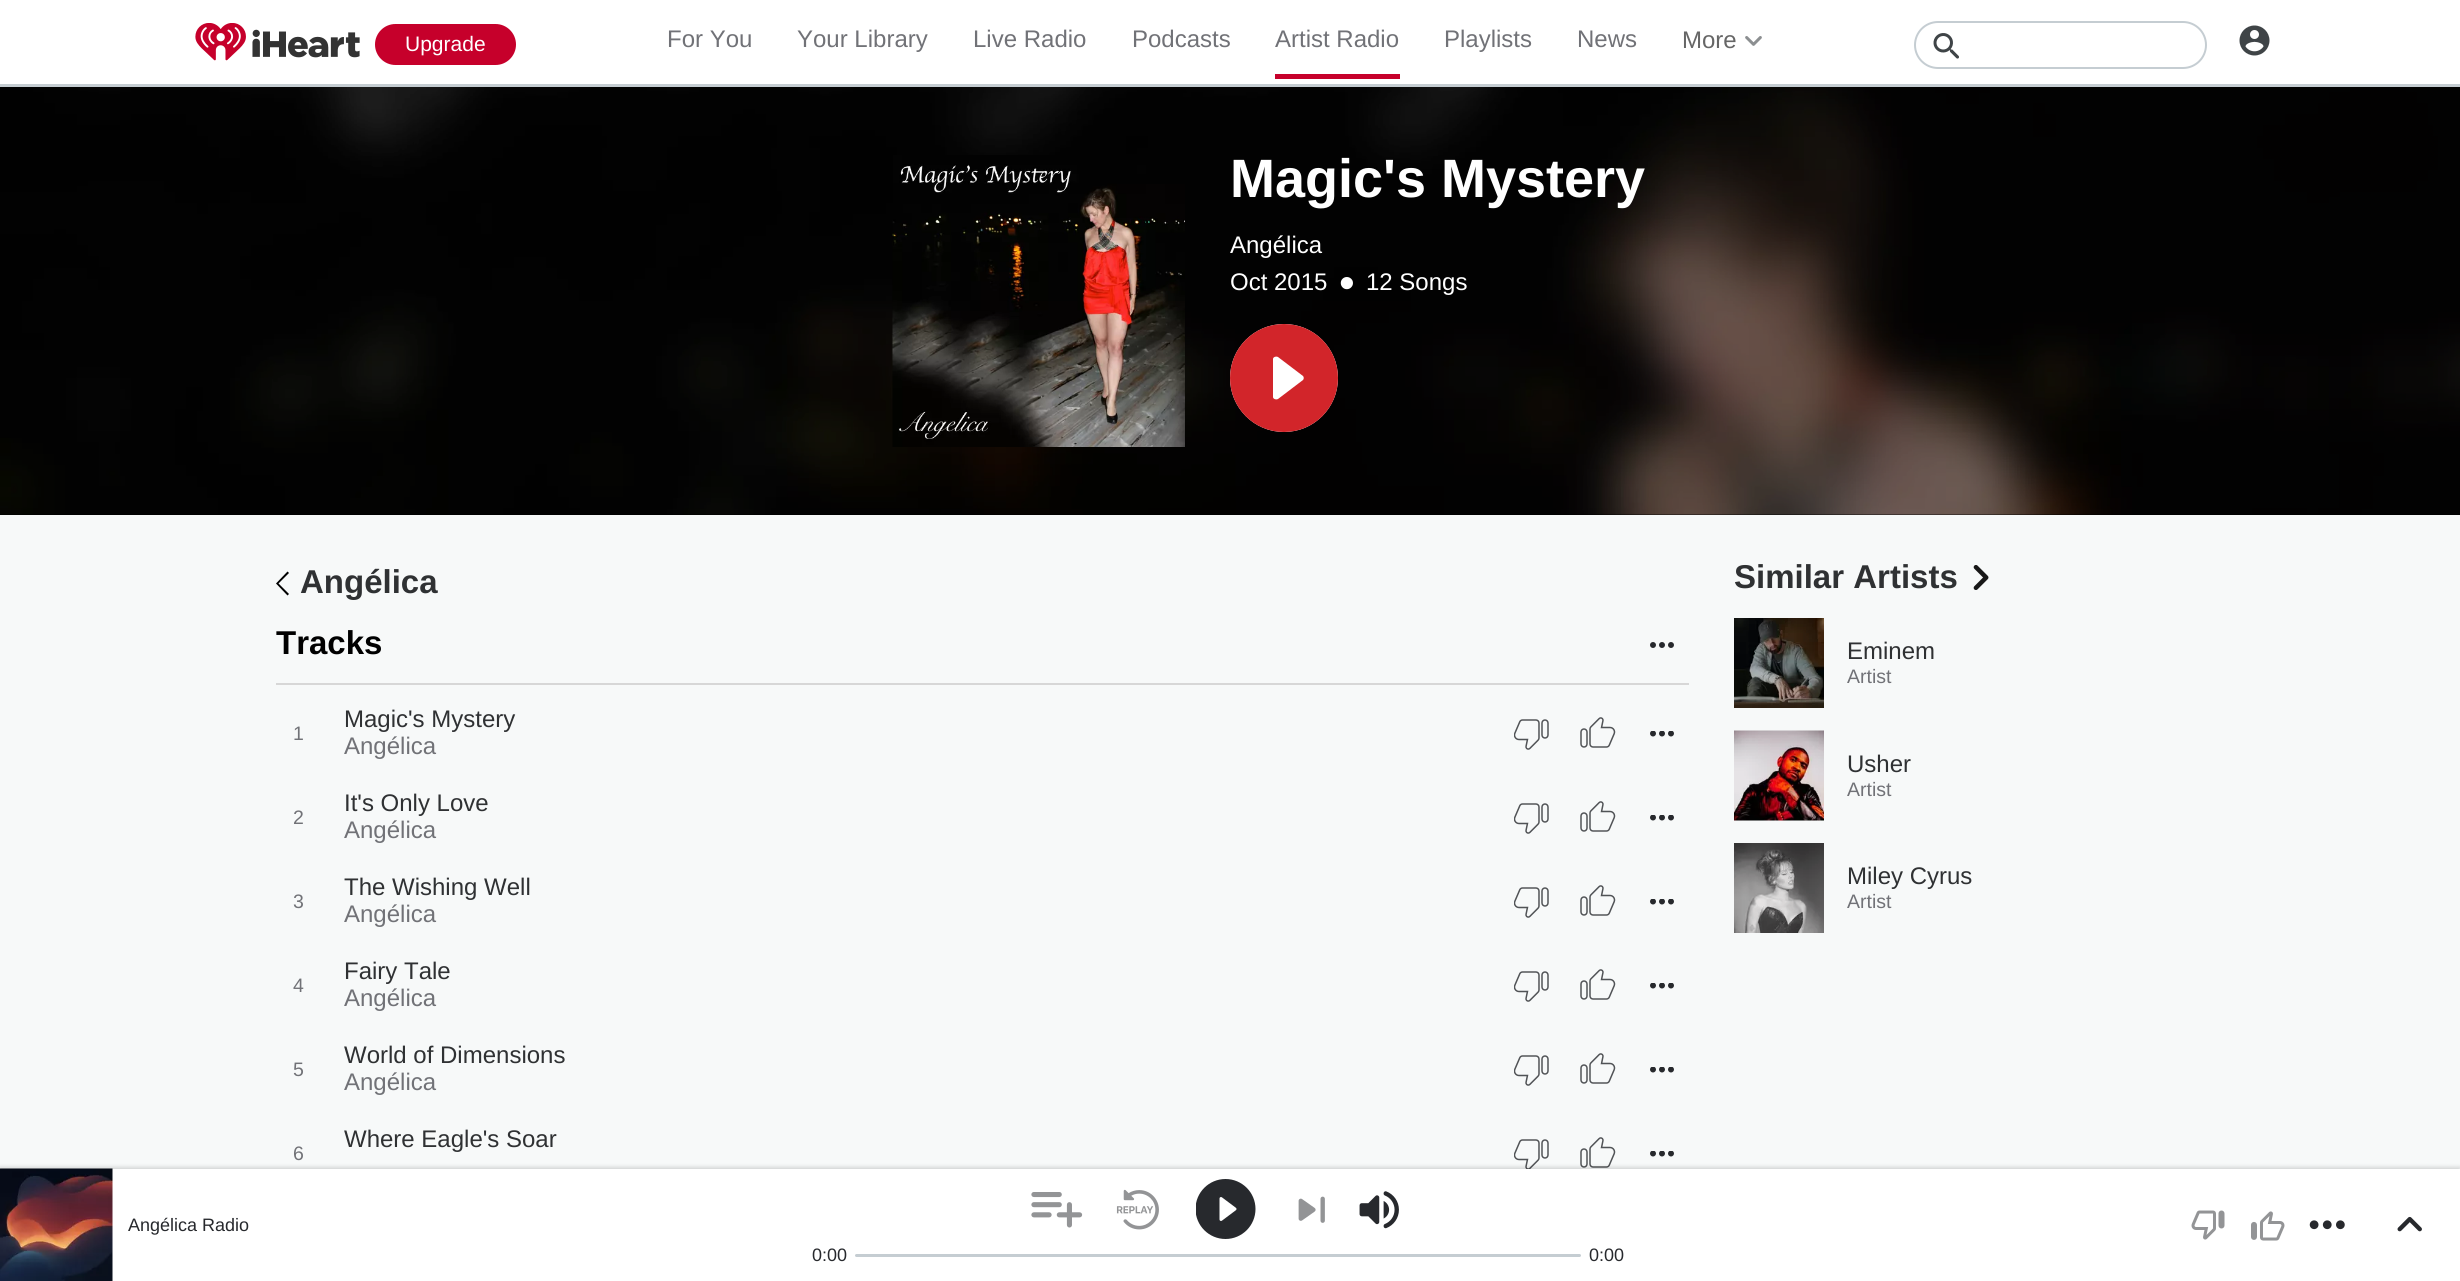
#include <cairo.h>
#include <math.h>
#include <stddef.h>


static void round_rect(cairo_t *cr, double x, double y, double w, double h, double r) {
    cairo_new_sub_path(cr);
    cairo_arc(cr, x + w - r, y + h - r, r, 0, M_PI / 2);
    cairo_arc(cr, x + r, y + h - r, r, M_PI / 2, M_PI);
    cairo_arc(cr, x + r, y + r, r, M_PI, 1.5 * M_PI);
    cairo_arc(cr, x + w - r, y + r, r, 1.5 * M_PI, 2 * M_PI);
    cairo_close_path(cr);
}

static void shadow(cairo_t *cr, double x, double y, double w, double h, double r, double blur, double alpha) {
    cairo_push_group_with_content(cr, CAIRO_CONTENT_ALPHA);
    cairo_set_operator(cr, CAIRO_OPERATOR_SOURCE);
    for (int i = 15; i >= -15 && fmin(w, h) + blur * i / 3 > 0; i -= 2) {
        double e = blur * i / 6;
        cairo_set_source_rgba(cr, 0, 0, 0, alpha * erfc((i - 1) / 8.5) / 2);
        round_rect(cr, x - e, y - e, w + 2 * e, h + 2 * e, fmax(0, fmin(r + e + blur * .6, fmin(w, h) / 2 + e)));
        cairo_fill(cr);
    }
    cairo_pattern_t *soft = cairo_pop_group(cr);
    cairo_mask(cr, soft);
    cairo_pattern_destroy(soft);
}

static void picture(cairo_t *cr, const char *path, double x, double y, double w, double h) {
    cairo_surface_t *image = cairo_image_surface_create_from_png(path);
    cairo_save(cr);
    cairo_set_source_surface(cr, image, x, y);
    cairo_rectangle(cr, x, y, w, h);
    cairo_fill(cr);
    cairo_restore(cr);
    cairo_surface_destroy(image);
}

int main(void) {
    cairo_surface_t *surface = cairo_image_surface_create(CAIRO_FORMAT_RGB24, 2460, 1281);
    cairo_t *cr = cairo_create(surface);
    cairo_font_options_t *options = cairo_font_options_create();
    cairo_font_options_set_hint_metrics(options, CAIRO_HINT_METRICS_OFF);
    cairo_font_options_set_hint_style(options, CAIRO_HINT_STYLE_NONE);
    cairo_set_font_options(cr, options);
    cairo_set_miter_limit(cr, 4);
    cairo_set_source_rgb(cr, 0, 0, 0);
    cairo_paint(cr);
    cairo_set_source_rgb(cr, 1, 1, 1);
    cairo_rectangle(cr, 0, 0, 2460, 84);
    cairo_fill(cr);
    cairo_set_source_rgb(cr, 0.773, 0.804, 0.824);
    cairo_rectangle(cr, 0, 84, 2460, 3);
    cairo_fill(cr);
    picture(cr, "img1.png", 195, 23, 165, 38);
    cairo_set_source_rgb(cr, 0.776, 0, 0.169);
    round_rect(cr, 375, 24, 141, 41, 20.5);
    cairo_fill(cr);
    cairo_select_font_face(cr, "Liberation Sans", CAIRO_FONT_SLANT_NORMAL, CAIRO_FONT_WEIGHT_NORMAL);
    cairo_set_font_size(cr, 21);
    cairo_set_source_rgb(cr, 1, 1, 1);
    cairo_move_to(cr, 405, 51);
    cairo_show_text(cr, "Upgrade");
    cairo_set_font_size(cr, 24);
    cairo_set_source_rgb(cr, 0.443, 0.447, 0.467);
    cairo_move_to(cr, 667, 47);
    cairo_show_text(cr, "For You");
    cairo_move_to(cr, 797, 47);
    cairo_show_text(cr, "Your Library");
    cairo_move_to(cr, 973, 47);
    cairo_show_text(cr, "Live Radio");
    cairo_move_to(cr, 1132, 47);
    cairo_show_text(cr, "Podcasts");
    cairo_move_to(cr, 1275, 47);
    cairo_show_text(cr, "Artist Radio");
    cairo_set_source_rgb(cr, 0.776, 0, 0.169);
    cairo_rectangle(cr, 1275, 74, 125, 5);
    cairo_fill(cr);
    cairo_set_source_rgb(cr, 0.443, 0.447, 0.467);
    cairo_move_to(cr, 1444, 47);
    cairo_show_text(cr, "Playlists");
    cairo_move_to(cr, 1577, 47);
    cairo_show_text(cr, "News");
    cairo_set_source_rgb(cr, 0.4, 0.4, 0.4);
    cairo_move_to(cr, 1682, 48);
    cairo_show_text(cr, "More");
    picture(cr, "img2.png", 1745, 36, 17, 10);
    round_rect(cr, 1915, 22, 291, 46, 23);
    cairo_set_source_rgb(cr, 0.773, 0.804, 0.824);
    cairo_stroke(cr);
    picture(cr, "img3.png", 1933, 33, 26, 26);
    picture(cr, "img4.png", 2239, 25, 31, 31);
    picture(cr, "img5.png", 0, 87, 2460, 428);
    picture(cr, "img6.png", 892, 155, 293, 292);
    cairo_select_font_face(cr, "Liberation Sans", CAIRO_FONT_SLANT_NORMAL, CAIRO_FONT_WEIGHT_BOLD);
    cairo_set_font_size(cr, 54);
    cairo_set_source_rgb(cr, 1, 1, 1);
    cairo_move_to(cr, 1230, 197);
    cairo_show_text(cr, "Magic's Mystery");
    cairo_select_font_face(cr, "Liberation Sans", CAIRO_FONT_SLANT_NORMAL, CAIRO_FONT_WEIGHT_NORMAL);
    cairo_set_font_size(cr, 24);
    cairo_move_to(cr, 1230, 253);
    cairo_show_text(cr, "Angélica");
    cairo_move_to(cr, 1230, 290);
    cairo_show_text(cr, "Oct 2015");
    cairo_set_font_size(cr, 45);
    cairo_move_to(cr, 1339, 298);
    cairo_show_text(cr, "•");
    cairo_set_font_size(cr, 24);
    cairo_move_to(cr, 1366, 290);
    cairo_show_text(cr, "12 Songs");
    cairo_new_path(cr);
    cairo_arc(cr, 1284, 378, 54, 0, 2 * M_PI);
    cairo_fill(cr);
    cairo_set_source_rgb(cr, 0.824, 0.145, 0.165);
    cairo_new_path(cr);
    cairo_move_to(cr, 1284, 324);
    cairo_curve_to(cr, 1254, 324, 1230, 348, 1230, 378);
    cairo_curve_to(cr, 1230, 408, 1254, 432, 1284, 432);
    cairo_curve_to(cr, 1314, 432, 1338, 408, 1338, 378);
    cairo_curve_to(cr, 1338, 348, 1314, 324, 1284, 324);
    cairo_close_path(cr);
    cairo_move_to(cr, 1273, 397);
    cairo_line_to(cr, 1273, 359);
    cairo_curve_to(cr, 1273, 357, 1276, 356, 1278, 357);
    cairo_line_to(cr, 1303, 376);
    cairo_curve_to(cr, 1304, 377, 1304, 379, 1303, 380);
    cairo_line_to(cr, 1278, 399);
    cairo_curve_to(cr, 1276, 400, 1273, 399, 1273, 397);
    cairo_close_path(cr);
    cairo_fill(cr);
    cairo_set_source_rgb(cr, 0.965, 0.973, 0.976);
    cairo_rectangle(cr, 0, 515, 2460, 654);
    cairo_fill(cr);
    cairo_set_source_rgb(cr, 0, 0, 0);
    cairo_new_path(cr);
    cairo_move_to(cr, 287.5, 571.5);
    cairo_line_to(cr, 276, 583.5);
    cairo_line_to(cr, 287.5, 595.5);
    cairo_line_to(cr, 289, 594);
    cairo_line_to(cr, 278.5, 583.5);
    cairo_line_to(cr, 289, 573);
    cairo_close_path(cr);
    cairo_fill(cr);
    cairo_select_font_face(cr, "Liberation Sans", CAIRO_FONT_SLANT_NORMAL, CAIRO_FONT_WEIGHT_BOLD);
    cairo_set_font_size(cr, 33);
    cairo_set_source_rgb(cr, 0.184, 0.192, 0.2);
    cairo_move_to(cr, 300, 593);
    cairo_show_text(cr, "Angélica");
    cairo_set_source_rgb(cr, 0.843, 0.843, 0.843);
    cairo_rectangle(cr, 276, 683, 1413, 2);
    cairo_fill(cr);
    cairo_set_source_rgb(cr, 0, 0, 0);
    cairo_move_to(cr, 276, 654);
    cairo_show_text(cr, "Tracks");
    picture(cr, "img7.png", 1650, 642, 24, 6);
    cairo_select_font_face(cr, "Liberation Sans", CAIRO_FONT_SLANT_NORMAL, CAIRO_FONT_WEIGHT_NORMAL);
    cairo_set_font_size(cr, 19.5);
    cairo_set_source_rgb(cr, 0.443, 0.447, 0.467);
    cairo_move_to(cr, 293, 740);
    cairo_show_text(cr, "1");
    cairo_set_font_size(cr, 24);
    cairo_set_source_rgb(cr, 0.184, 0.192, 0.2);
    cairo_move_to(cr, 344, 727);
    cairo_show_text(cr, "Magic's Mystery");
    cairo_set_source_rgb(cr, 0.443, 0.447, 0.467);
    cairo_move_to(cr, 344, 754);
    cairo_show_text(cr, "Angélica");
    picture(cr, "img8.png", 1514, 719, 35, 31);
    picture(cr, "img9.png", 1580, 717, 36, 31);
    picture(cr, "img10.png", 1650, 731, 24, 6);
    cairo_set_font_size(cr, 19.5);
    cairo_move_to(cr, 293, 824);
    cairo_show_text(cr, "2");
    cairo_set_font_size(cr, 24);
    cairo_set_source_rgb(cr, 0.184, 0.192, 0.2);
    cairo_move_to(cr, 344, 811);
    cairo_show_text(cr, "It's Only Love");
    cairo_set_source_rgb(cr, 0.443, 0.447, 0.467);
    cairo_move_to(cr, 344, 838);
    cairo_show_text(cr, "Angélica");
    picture(cr, "img8.png", 1514, 803, 35, 31);
    picture(cr, "img9.png", 1580, 801, 36, 31);
    picture(cr, "img10.png", 1650, 815, 24, 6);
    cairo_set_font_size(cr, 19.5);
    cairo_move_to(cr, 293, 908);
    cairo_show_text(cr, "3");
    cairo_set_font_size(cr, 24);
    cairo_set_source_rgb(cr, 0.184, 0.192, 0.2);
    cairo_move_to(cr, 344, 895);
    cairo_show_text(cr, "The Wishing Well");
    cairo_set_source_rgb(cr, 0.443, 0.447, 0.467);
    cairo_move_to(cr, 344, 922);
    cairo_show_text(cr, "Angélica");
    picture(cr, "img8.png", 1514, 887, 35, 31);
    picture(cr, "img9.png", 1580, 885, 36, 31);
    picture(cr, "img10.png", 1650, 899, 24, 6);
    cairo_set_font_size(cr, 19.5);
    cairo_move_to(cr, 293, 992);
    cairo_show_text(cr, "4");
    cairo_set_font_size(cr, 24);
    cairo_set_source_rgb(cr, 0.184, 0.192, 0.2);
    cairo_move_to(cr, 344, 979);
    cairo_show_text(cr, "Fairy Tale");
    cairo_set_source_rgb(cr, 0.443, 0.447, 0.467);
    cairo_move_to(cr, 344, 1006);
    cairo_show_text(cr, "Angélica");
    picture(cr, "img8.png", 1514, 971, 35, 31);
    picture(cr, "img9.png", 1580, 969, 36, 31);
    picture(cr, "img10.png", 1650, 983, 24, 6);
    cairo_set_font_size(cr, 19.5);
    cairo_move_to(cr, 293, 1076);
    cairo_show_text(cr, "5");
    cairo_set_font_size(cr, 24);
    cairo_set_source_rgb(cr, 0.184, 0.192, 0.2);
    cairo_move_to(cr, 344, 1063);
    cairo_show_text(cr, "World of Dimensions");
    cairo_set_source_rgb(cr, 0.443, 0.447, 0.467);
    cairo_move_to(cr, 344, 1090);
    cairo_show_text(cr, "Angélica");
    picture(cr, "img8.png", 1514, 1055, 35, 31);
    picture(cr, "img9.png", 1580, 1053, 36, 31);
    picture(cr, "img10.png", 1650, 1067, 24, 6);
    cairo_set_font_size(cr, 19.5);
    cairo_move_to(cr, 293, 1160);
    cairo_show_text(cr, "6");
    cairo_set_font_size(cr, 24);
    cairo_set_source_rgb(cr, 0.184, 0.192, 0.2);
    cairo_move_to(cr, 344, 1147);
    cairo_show_text(cr, "Where Eagle's Soar");
    picture(cr, "img11.png", 1514, 1139, 35, 30);
    picture(cr, "img9.png", 1580, 1137, 36, 31);
    picture(cr, "img10.png", 1650, 1151, 24, 6);
    cairo_select_font_face(cr, "Liberation Sans", CAIRO_FONT_SLANT_NORMAL, CAIRO_FONT_WEIGHT_BOLD);
    cairo_set_font_size(cr, 33);
    cairo_move_to(cr, 1734, 588);
    cairo_show_text(cr, "Similar Artists");
    picture(cr, "img12.png", 1973, 565, 16, 25);
    picture(cr, "img13.png", 1734, 618, 90, 90);
    cairo_select_font_face(cr, "Liberation Sans", CAIRO_FONT_SLANT_NORMAL, CAIRO_FONT_WEIGHT_NORMAL);
    cairo_set_font_size(cr, 24);
    cairo_move_to(cr, 1847, 659);
    cairo_show_text(cr, "Eminem");
    cairo_set_font_size(cr, 19.5);
    cairo_set_source_rgb(cr, 0.443, 0.447, 0.467);
    cairo_move_to(cr, 1847, 683);
    cairo_show_text(cr, "Artist");
    picture(cr, "img14.png", 1734, 730, 90, 91);
    cairo_set_font_size(cr, 24);
    cairo_set_source_rgb(cr, 0.184, 0.192, 0.2);
    cairo_move_to(cr, 1847, 772);
    cairo_show_text(cr, "Usher");
    cairo_set_font_size(cr, 19.5);
    cairo_set_source_rgb(cr, 0.443, 0.447, 0.467);
    cairo_move_to(cr, 1847, 796);
    cairo_show_text(cr, "Artist");
    picture(cr, "img15.png", 1734, 843, 90, 90);
    cairo_set_font_size(cr, 24);
    cairo_set_source_rgb(cr, 0.184, 0.192, 0.2);
    cairo_move_to(cr, 1847, 884);
    cairo_show_text(cr, "Miley Cyrus");
    cairo_set_font_size(cr, 19.5);
    cairo_set_source_rgb(cr, 0.443, 0.447, 0.467);
    cairo_move_to(cr, 1847, 908);
    cairo_show_text(cr, "Artist");
    cairo_set_source_rgb(cr, 0, 0, 0);
    shadow(cr, 0, 1167, 2460, 113, 0, 2, 0.15);
    cairo_set_source_rgb(cr, 1, 1, 1);
    cairo_rectangle(cr, 112, 1169, 2348, 112);
    cairo_fill(cr);
    picture(cr, "img16.png", 0, 1168, 113, 113);
    cairo_set_font_size(cr, 18);
    cairo_set_source_rgb(cr, 0.153, 0.161, 0.176);
    cairo_move_to(cr, 128, 1231);
    cairo_show_text(cr, "Angélica Radio");
    picture(cr, "img17.png", 2191, 1210, 34, 30);
    picture(cr, "img18.png", 2251, 1211, 34, 30);
    picture(cr, "img19.png", 2309, 1220, 36, 10);
    picture(cr, "img20.png", 2397, 1216, 25, 16);
    picture(cr, "img21.png", 1031, 1192, 52, 36);
    picture(cr, "img22.png", 1116, 1189, 43, 41);
    picture(cr, "img23.png", 1196, 1179, 60, 60);
    picture(cr, "img24.png", 1298, 1196, 27, 27);
    picture(cr, "img25.png", 1359, 1191, 40, 38);
    cairo_move_to(cr, 812, 1261);
    cairo_show_text(cr, "0:00");
    cairo_set_source_rgb(cr, 0.773, 0.804, 0.824);
    round_rect(cr, 855, 1254, 726, 3, 1.5);
    cairo_fill(cr);
    cairo_set_source_rgb(cr, 0.153, 0.161, 0.176);
    cairo_move_to(cr, 1589, 1261);
    cairo_show_text(cr, "0:00");
    cairo_surface_write_to_png(surface, "page.png");
    cairo_font_options_destroy(options);
    cairo_destroy(cr);
    cairo_surface_destroy(surface);
    return 0;
}
